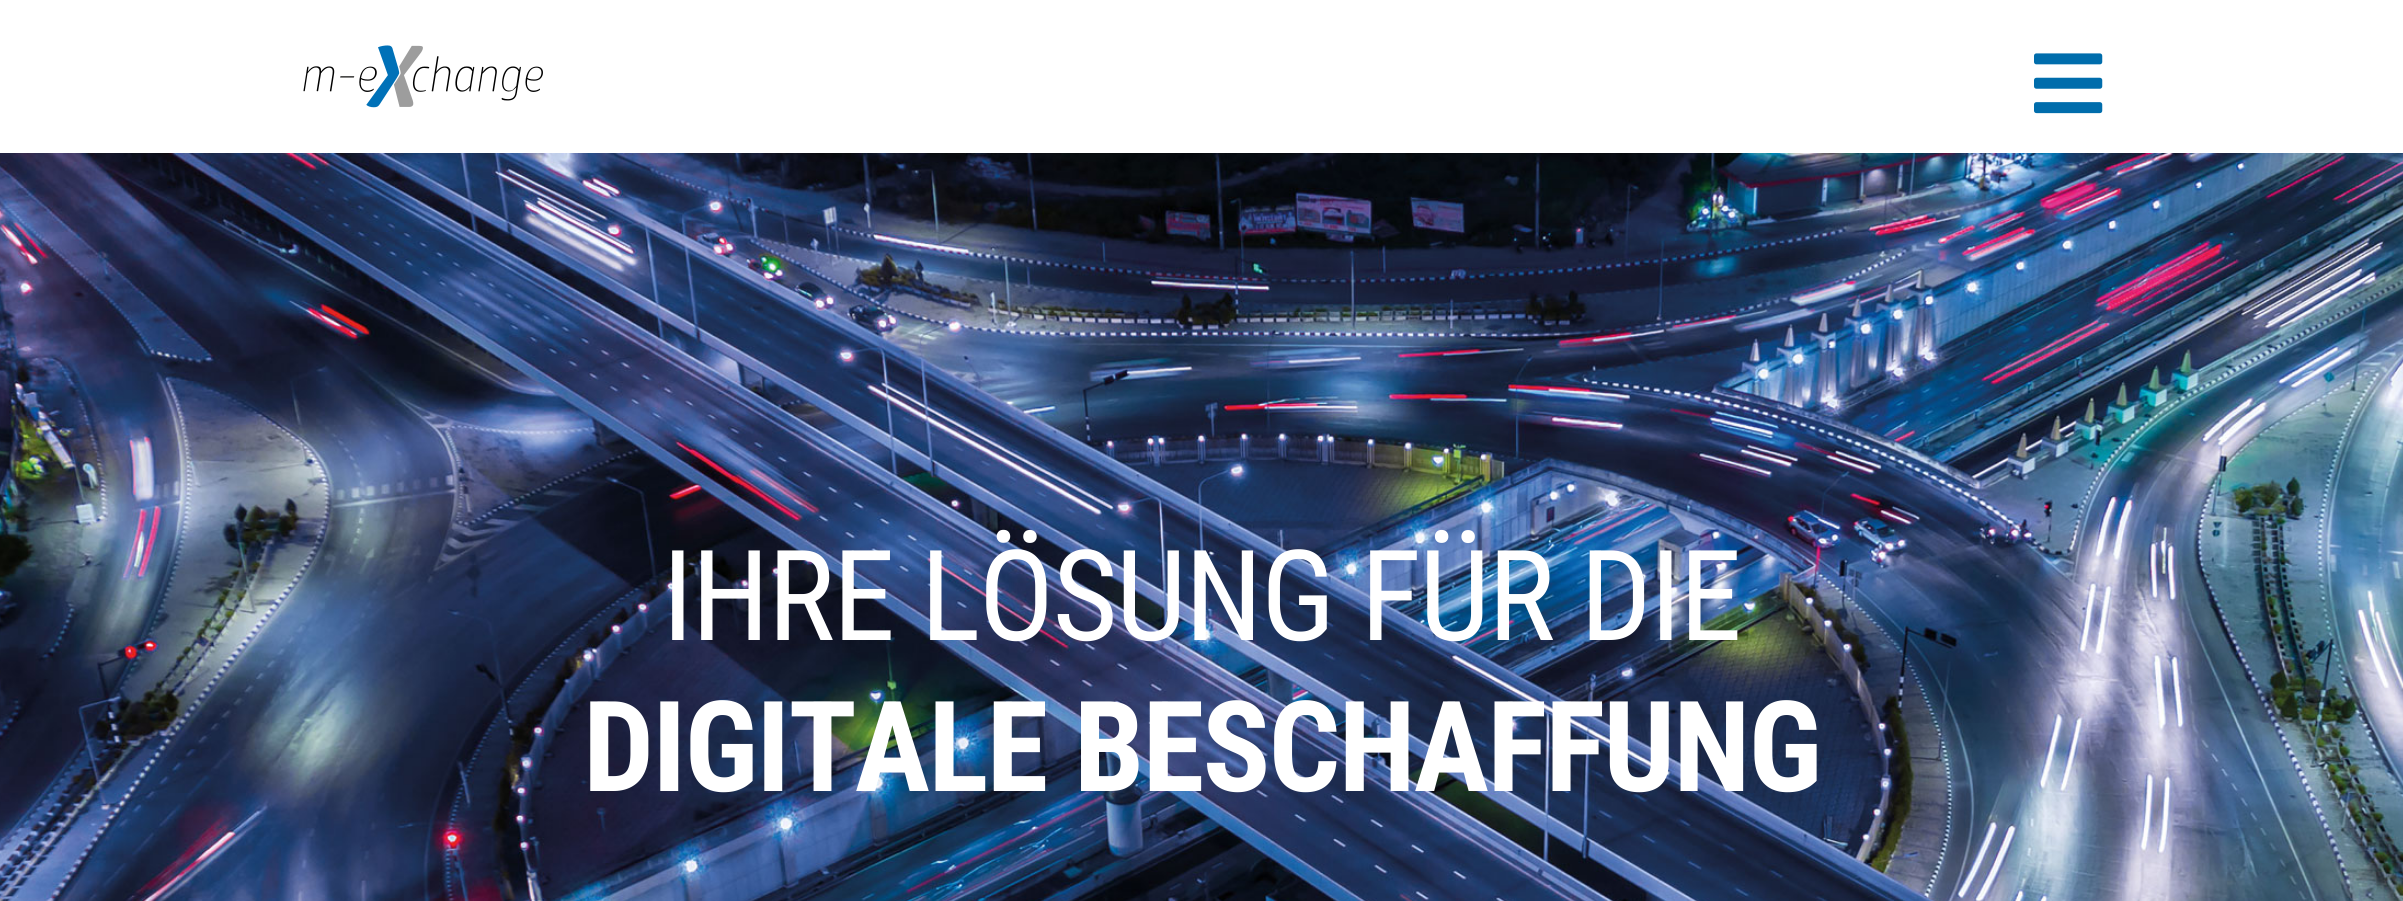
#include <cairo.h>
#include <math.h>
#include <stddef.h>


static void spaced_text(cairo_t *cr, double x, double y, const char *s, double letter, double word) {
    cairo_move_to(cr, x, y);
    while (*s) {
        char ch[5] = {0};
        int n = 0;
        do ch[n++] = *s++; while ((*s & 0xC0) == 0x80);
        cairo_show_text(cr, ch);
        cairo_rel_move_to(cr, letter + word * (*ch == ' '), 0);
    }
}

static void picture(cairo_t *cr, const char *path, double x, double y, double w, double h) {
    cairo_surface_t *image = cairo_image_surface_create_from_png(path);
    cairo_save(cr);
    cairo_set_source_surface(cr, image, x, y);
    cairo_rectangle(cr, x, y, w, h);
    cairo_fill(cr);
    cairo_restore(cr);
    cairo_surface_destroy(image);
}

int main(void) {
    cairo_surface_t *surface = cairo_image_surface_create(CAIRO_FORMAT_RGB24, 2403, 901);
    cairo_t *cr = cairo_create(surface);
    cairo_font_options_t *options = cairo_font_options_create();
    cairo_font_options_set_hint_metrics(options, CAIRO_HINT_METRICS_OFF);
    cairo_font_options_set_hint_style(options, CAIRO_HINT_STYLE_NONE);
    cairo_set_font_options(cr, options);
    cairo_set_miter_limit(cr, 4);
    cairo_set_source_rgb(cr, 1, 1, 1);
    cairo_paint(cr);
    picture(cr, "img1.png", 303, 45, 240, 63);
    picture(cr, "img2.png", 2034, 53, 69, 61);
    picture(cr, "img3.png", 0, 153, 2403, 748);
    cairo_select_font_face(cr, "Roboto Condensed", CAIRO_FONT_SLANT_NORMAL, CAIRO_FONT_WEIGHT_NORMAL);
    cairo_set_font_size(cr, 126);
    cairo_set_source_rgb(cr, 1, 1, 1);
    spaced_text(cr, 662, 640, "IHRE LÖSUNG FÜR DIE", -1.9, 0);
    cairo_select_font_face(cr, "Roboto Condensed", CAIRO_FONT_SLANT_NORMAL, CAIRO_FONT_WEIGHT_BOLD);
    spaced_text(cr, 583, 791, "DIGITALE BESCHAFFUNG", -1.9, 0);
    cairo_surface_write_to_png(surface, "page.png");
    cairo_font_options_destroy(options);
    cairo_destroy(cr);
    cairo_surface_destroy(surface);
    return 0;
}
